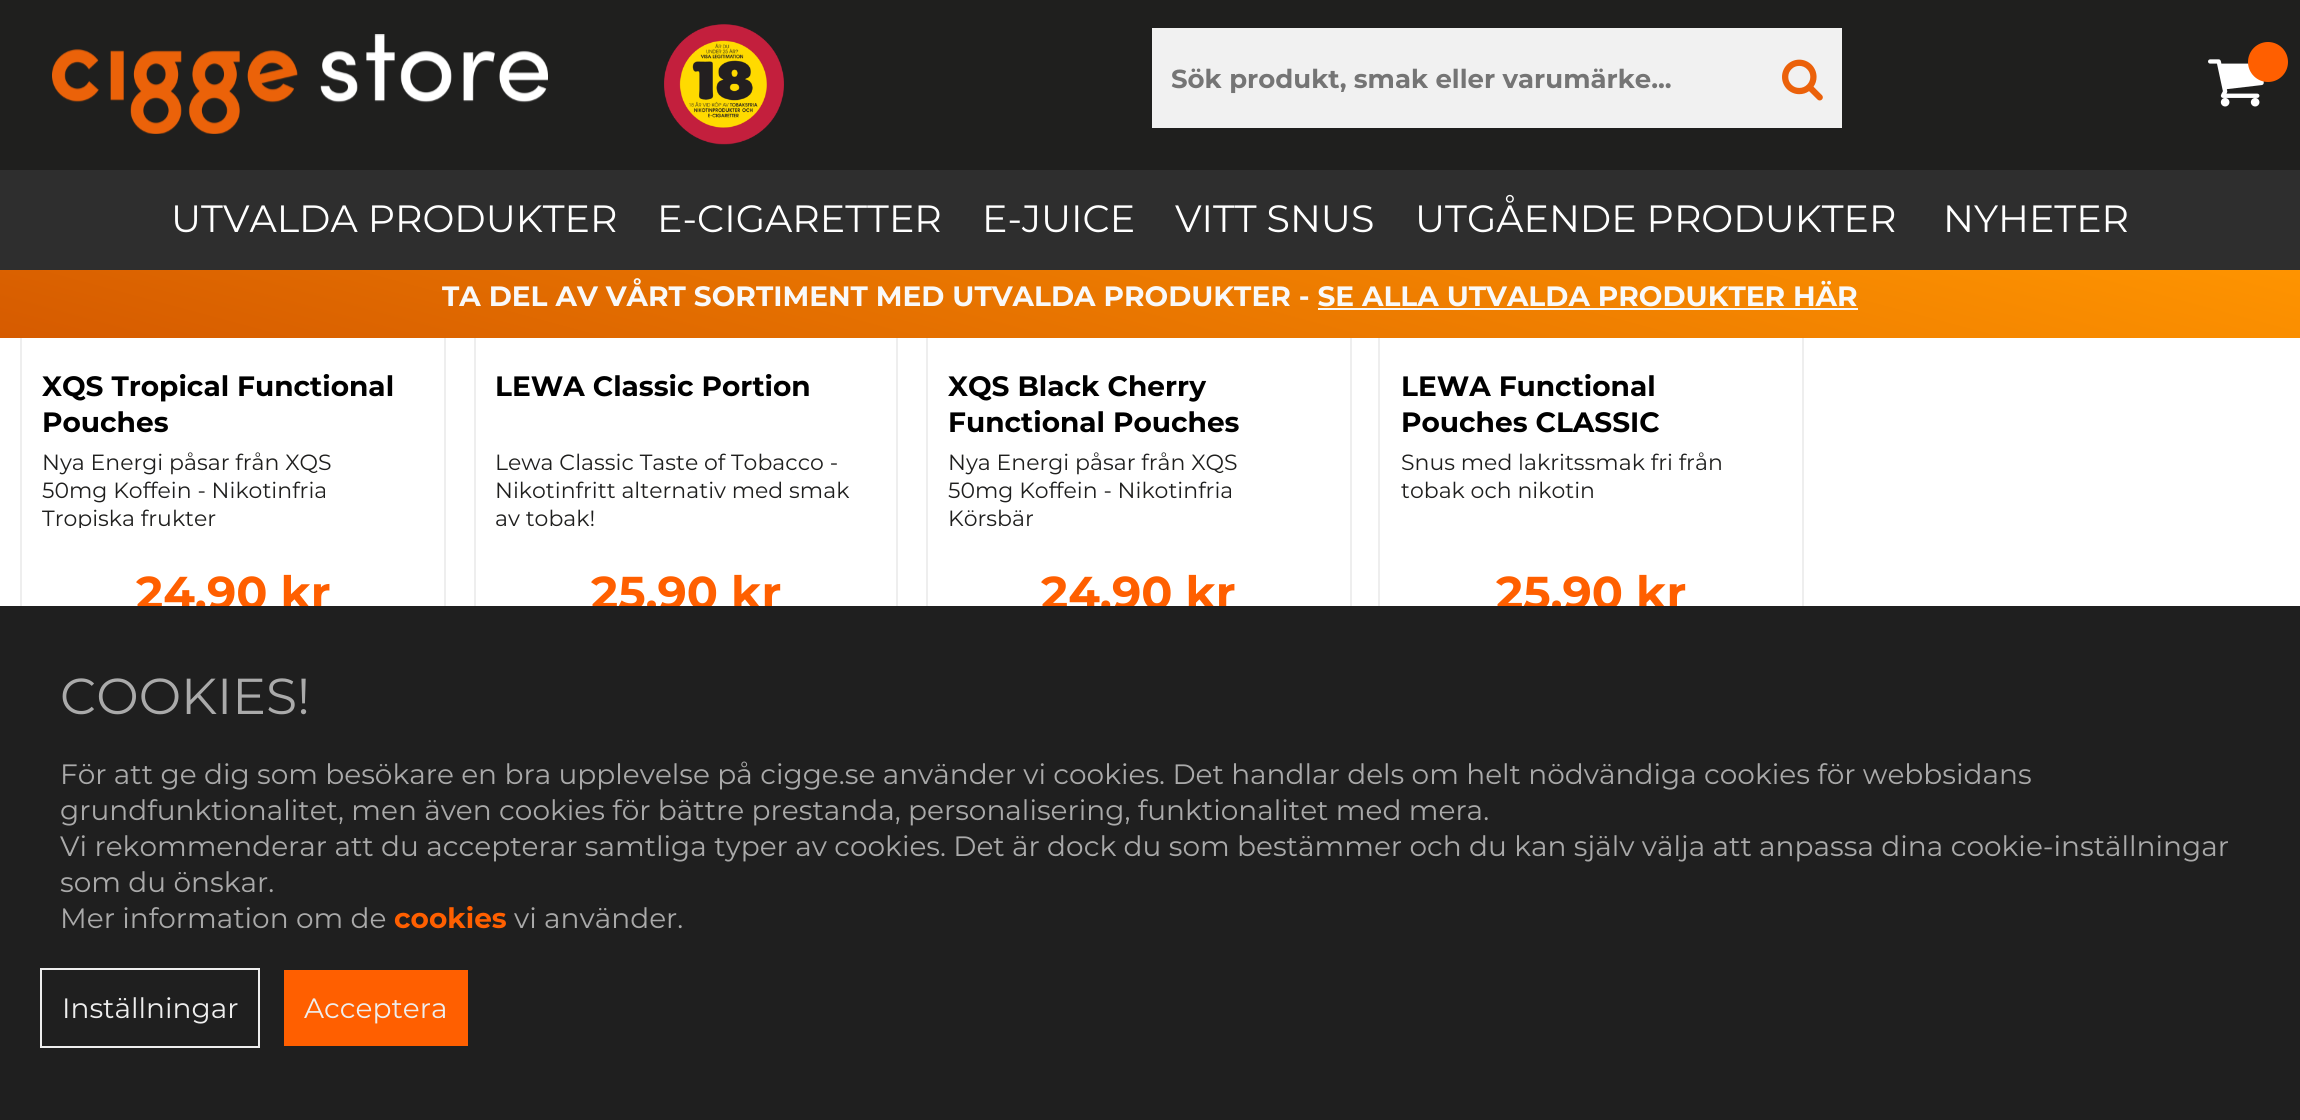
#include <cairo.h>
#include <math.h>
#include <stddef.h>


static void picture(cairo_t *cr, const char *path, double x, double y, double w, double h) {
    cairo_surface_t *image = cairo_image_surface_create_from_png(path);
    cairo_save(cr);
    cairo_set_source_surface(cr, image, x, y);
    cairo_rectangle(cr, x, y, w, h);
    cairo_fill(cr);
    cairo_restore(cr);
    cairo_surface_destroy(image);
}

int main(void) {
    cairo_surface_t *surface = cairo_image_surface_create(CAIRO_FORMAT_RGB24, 2300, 1120);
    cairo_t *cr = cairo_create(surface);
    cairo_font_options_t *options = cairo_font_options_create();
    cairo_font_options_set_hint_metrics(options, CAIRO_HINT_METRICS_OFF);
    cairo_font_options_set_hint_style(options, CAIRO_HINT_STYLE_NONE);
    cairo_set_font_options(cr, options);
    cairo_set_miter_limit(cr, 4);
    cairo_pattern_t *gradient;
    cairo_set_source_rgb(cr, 1, 1, 1);
    cairo_paint(cr);
    cairo_rectangle(cr, 21, -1, 424, 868);
    cairo_set_source_rgb(cr, 0.933, 0.933, 0.933);
    cairo_stroke(cr);
    cairo_rectangle(cr, 475, -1, 422, 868);
    cairo_stroke(cr);
    cairo_rectangle(cr, 927, -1, 424, 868);
    cairo_stroke(cr);
    cairo_rectangle(cr, 1379, -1, 424, 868);
    cairo_stroke(cr);
    cairo_set_source_rgb(cr, 0.122, 0.122, 0.118);
    cairo_rectangle(cr, 0, 0, 2300, 170);
    cairo_fill(cr);
    picture(cr, "img1.png", 52, 34, 496, 100);
    picture(cr, "img2.png", 664, 24, 120, 121);
    cairo_set_source_rgb(cr, 0.945, 0.945, 0.945);
    cairo_rectangle(cr, 1152, 28, 690, 100);
    cairo_fill(cr);
    cairo_select_font_face(cr, "Montserrat", CAIRO_FONT_SLANT_NORMAL, CAIRO_FONT_WEIGHT_BOLD);
    cairo_set_font_size(cr, 26);
    cairo_set_source_rgb(cr, 0.459, 0.459, 0.459);
    cairo_move_to(cr, 1171, 88);
    cairo_show_text(cr, "Sök produkt, smak eller varumärke...");
    picture(cr, "img3.png", 1782, 59, 41, 42);
    picture(cr, "img4.png", 2208, 59, 56, 48);
    cairo_set_source_rgb(cr, 1, 0.373, 0);
    cairo_arc(cr, 2268, 62, 20, 0, 2 * M_PI);
    cairo_fill(cr);
    cairo_set_source_rgb(cr, 0.18, 0.18, 0.18);
    cairo_rectangle(cr, 0, 170, 2300, 100);
    cairo_fill(cr);
    cairo_select_font_face(cr, "Montserrat", CAIRO_FONT_SLANT_NORMAL, CAIRO_FONT_WEIGHT_NORMAL);
    cairo_set_font_size(cr, 38);
    cairo_set_source_rgb(cr, 1, 1, 1);
    cairo_move_to(cr, 171, 232);
    cairo_show_text(cr, "UTVALDA PRODUKTER");
    cairo_move_to(cr, 657, 232);
    cairo_show_text(cr, "E-CIGARETTER");
    cairo_move_to(cr, 982, 232);
    cairo_show_text(cr, "E-JUICE");
    cairo_move_to(cr, 1175, 232);
    cairo_show_text(cr, "VITT SNUS");
    cairo_move_to(cr, 1415, 232);
    cairo_show_text(cr, "UTGÅENDE PRODUKTER");
    cairo_move_to(cr, 1943, 232);
    cairo_show_text(cr, "NYHETER");
    gradient = cairo_pattern_create_linear(1062, 623, 1238, -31);
    cairo_pattern_add_color_stop_rgba(gradient, 0, 0.839, 0.357, 0, 1);
    cairo_pattern_add_color_stop_rgba(gradient, 1, 1, 0.584, 0, 1);
    cairo_set_source(cr, gradient);
    cairo_pattern_destroy(gradient);
    cairo_rectangle(cr, 0, 270, 2300, 68);
    cairo_fill(cr);
    cairo_select_font_face(cr, "Montserrat", CAIRO_FONT_SLANT_NORMAL, CAIRO_FONT_WEIGHT_BOLD);
    cairo_set_font_size(cr, 28);
    cairo_set_source_rgb(cr, 0.973, 0.973, 0.973);
    cairo_move_to(cr, 442, 306);
    cairo_show_text(cr, "TA DEL AV VÅRT SORTIMENT MED UTVALDA PRODUKTER - SE ALLA UTVALDA PRODUKTER HÄR");
    cairo_rectangle(cr, 1318, 308, 540, 2);
    cairo_fill(cr);
    cairo_set_source_rgb(cr, 0, 0, 0);
    cairo_move_to(cr, 42, 396);
    cairo_show_text(cr, "XQS Tropical Functional");
    cairo_move_to(cr, 42, 432);
    cairo_show_text(cr, "Pouches");
    cairo_select_font_face(cr, "Montserrat", CAIRO_FONT_SLANT_NORMAL, CAIRO_FONT_WEIGHT_NORMAL);
    cairo_set_font_size(cr, 22);
    cairo_set_source_rgb(cr, 0.122, 0.122, 0.118);
    cairo_move_to(cr, 42, 470);
    cairo_show_text(cr, "Nya Energi påsar från XQS");
    cairo_move_to(cr, 42, 498);
    cairo_show_text(cr, "50mg Koffein - Nikotinfria");
    cairo_save(cr);
    cairo_rectangle(cr, 42, 448, 382, 80);
    cairo_clip(cr);
    cairo_move_to(cr, 42, 526);
    cairo_show_text(cr, "Tropiska frukter");
    cairo_restore(cr);
    cairo_select_font_face(cr, "Montserrat", CAIRO_FONT_SLANT_NORMAL, CAIRO_FONT_WEIGHT_BOLD);
    cairo_set_font_size(cr, 46);
    cairo_set_source_rgb(cr, 1, 0.373, 0);
    cairo_move_to(cr, 136, 609);
    cairo_show_text(cr, "24.90 kr");
    cairo_set_font_size(cr, 28);
    cairo_set_source_rgb(cr, 0, 0, 0);
    cairo_move_to(cr, 495, 396);
    cairo_show_text(cr, "LEWA Classic Portion");
    cairo_select_font_face(cr, "Montserrat", CAIRO_FONT_SLANT_NORMAL, CAIRO_FONT_WEIGHT_NORMAL);
    cairo_set_font_size(cr, 22);
    cairo_set_source_rgb(cr, 0.122, 0.122, 0.118);
    cairo_move_to(cr, 495, 470);
    cairo_show_text(cr, "Lewa Classic Taste of Tobacco -");
    cairo_move_to(cr, 495, 498);
    cairo_show_text(cr, "Nikotinfritt alternativ med smak");
    cairo_move_to(cr, 495, 526);
    cairo_show_text(cr, "av tobak!");
    cairo_select_font_face(cr, "Montserrat", CAIRO_FONT_SLANT_NORMAL, CAIRO_FONT_WEIGHT_BOLD);
    cairo_set_font_size(cr, 46);
    cairo_set_source_rgb(cr, 1, 0.373, 0);
    cairo_move_to(cr, 591, 609);
    cairo_show_text(cr, "25.90 kr");
    cairo_set_font_size(cr, 28);
    cairo_set_source_rgb(cr, 0, 0, 0);
    cairo_move_to(cr, 948, 396);
    cairo_show_text(cr, "XQS Black Cherry");
    cairo_move_to(cr, 948, 432);
    cairo_show_text(cr, "Functional Pouches");
    cairo_select_font_face(cr, "Montserrat", CAIRO_FONT_SLANT_NORMAL, CAIRO_FONT_WEIGHT_NORMAL);
    cairo_set_font_size(cr, 22);
    cairo_set_source_rgb(cr, 0.122, 0.122, 0.118);
    cairo_move_to(cr, 948, 470);
    cairo_show_text(cr, "Nya Energi påsar från XQS");
    cairo_move_to(cr, 948, 498);
    cairo_show_text(cr, "50mg Koffein - Nikotinfria");
    cairo_move_to(cr, 948, 526);
    cairo_show_text(cr, "Körsbär");
    cairo_select_font_face(cr, "Montserrat", CAIRO_FONT_SLANT_NORMAL, CAIRO_FONT_WEIGHT_BOLD);
    cairo_set_font_size(cr, 46);
    cairo_set_source_rgb(cr, 1, 0.373, 0);
    cairo_move_to(cr, 1041, 609);
    cairo_show_text(cr, "24.90 kr");
    cairo_set_font_size(cr, 28);
    cairo_set_source_rgb(cr, 0, 0, 0);
    cairo_move_to(cr, 1401, 396);
    cairo_show_text(cr, "LEWA Functional");
    cairo_move_to(cr, 1401, 432);
    cairo_show_text(cr, "Pouches CLASSIC");
    cairo_select_font_face(cr, "Montserrat", CAIRO_FONT_SLANT_NORMAL, CAIRO_FONT_WEIGHT_NORMAL);
    cairo_set_font_size(cr, 22);
    cairo_set_source_rgb(cr, 0.122, 0.122, 0.118);
    cairo_move_to(cr, 1401, 470);
    cairo_show_text(cr, "Snus med lakritssmak fri från");
    cairo_move_to(cr, 1401, 498);
    cairo_show_text(cr, "tobak och nikotin");
    cairo_select_font_face(cr, "Montserrat", CAIRO_FONT_SLANT_NORMAL, CAIRO_FONT_WEIGHT_BOLD);
    cairo_set_font_size(cr, 46);
    cairo_set_source_rgb(cr, 1, 0.373, 0);
    cairo_move_to(cr, 1496, 609);
    cairo_show_text(cr, "25.90 kr");
    cairo_set_source_rgb(cr, 0.122, 0.122, 0.122);
    cairo_rectangle(cr, 0, 606, 2300, 514);
    cairo_fill(cr);
    cairo_select_font_face(cr, "Montserrat", CAIRO_FONT_SLANT_NORMAL, CAIRO_FONT_WEIGHT_NORMAL);
    cairo_set_font_size(cr, 50.5);
    cairo_set_source_rgb(cr, 0.667, 0.667, 0.667);
    cairo_move_to(cr, 60, 714);
    cairo_show_text(cr, "COOKIES!");
    cairo_set_font_size(cr, 28);
    cairo_move_to(cr, 60, 784);
    cairo_show_text(cr, "För att ge dig som besökare en bra upplevelse på cigge.se använder vi cookies. Det handlar dels om helt nödvändiga cookies för webbsidans");
    cairo_move_to(cr, 60, 820);
    cairo_show_text(cr, "grundfunktionalitet, men även cookies för bättre prestanda, personalisering, funktionalitet med mera.");
    cairo_move_to(cr, 60, 856);
    cairo_show_text(cr, "Vi rekommenderar att du accepterar samtliga typer av cookies. Det är dock du som bestämmer och du kan själv välja att anpassa dina cookie-inställningar");
    cairo_move_to(cr, 60, 892);
    cairo_show_text(cr, "som du önskar.");
    cairo_move_to(cr, 60, 928);
    cairo_show_text(cr, "Mer information om de");
    cairo_select_font_face(cr, "Montserrat", CAIRO_FONT_SLANT_NORMAL, CAIRO_FONT_WEIGHT_BOLD);
    cairo_set_source_rgb(cr, 1, 0.373, 0);
    cairo_move_to(cr, 394, 928);
    cairo_show_text(cr, "cookies");
    cairo_select_font_face(cr, "Montserrat", CAIRO_FONT_SLANT_NORMAL, CAIRO_FONT_WEIGHT_NORMAL);
    cairo_set_source_rgb(cr, 0.667, 0.667, 0.667);
    cairo_move_to(cr, 514, 928);
    cairo_show_text(cr, "vi använder.");
    cairo_rectangle(cr, 41, 969, 218, 78);
    cairo_set_source_rgb(cr, 0.933, 0.933, 0.933);
    cairo_stroke(cr);
    cairo_move_to(cr, 62, 1018);
    cairo_show_text(cr, "Inställningar");
    cairo_set_source_rgb(cr, 1, 0.373, 0);
    cairo_rectangle(cr, 284, 970, 184, 76);
    cairo_fill(cr);
    cairo_set_source_rgb(cr, 0.933, 0.933, 0.933);
    cairo_move_to(cr, 304, 1018);
    cairo_show_text(cr, "Acceptera");
    cairo_surface_write_to_png(surface, "page.png");
    cairo_font_options_destroy(options);
    cairo_destroy(cr);
    cairo_surface_destroy(surface);
    return 0;
}
